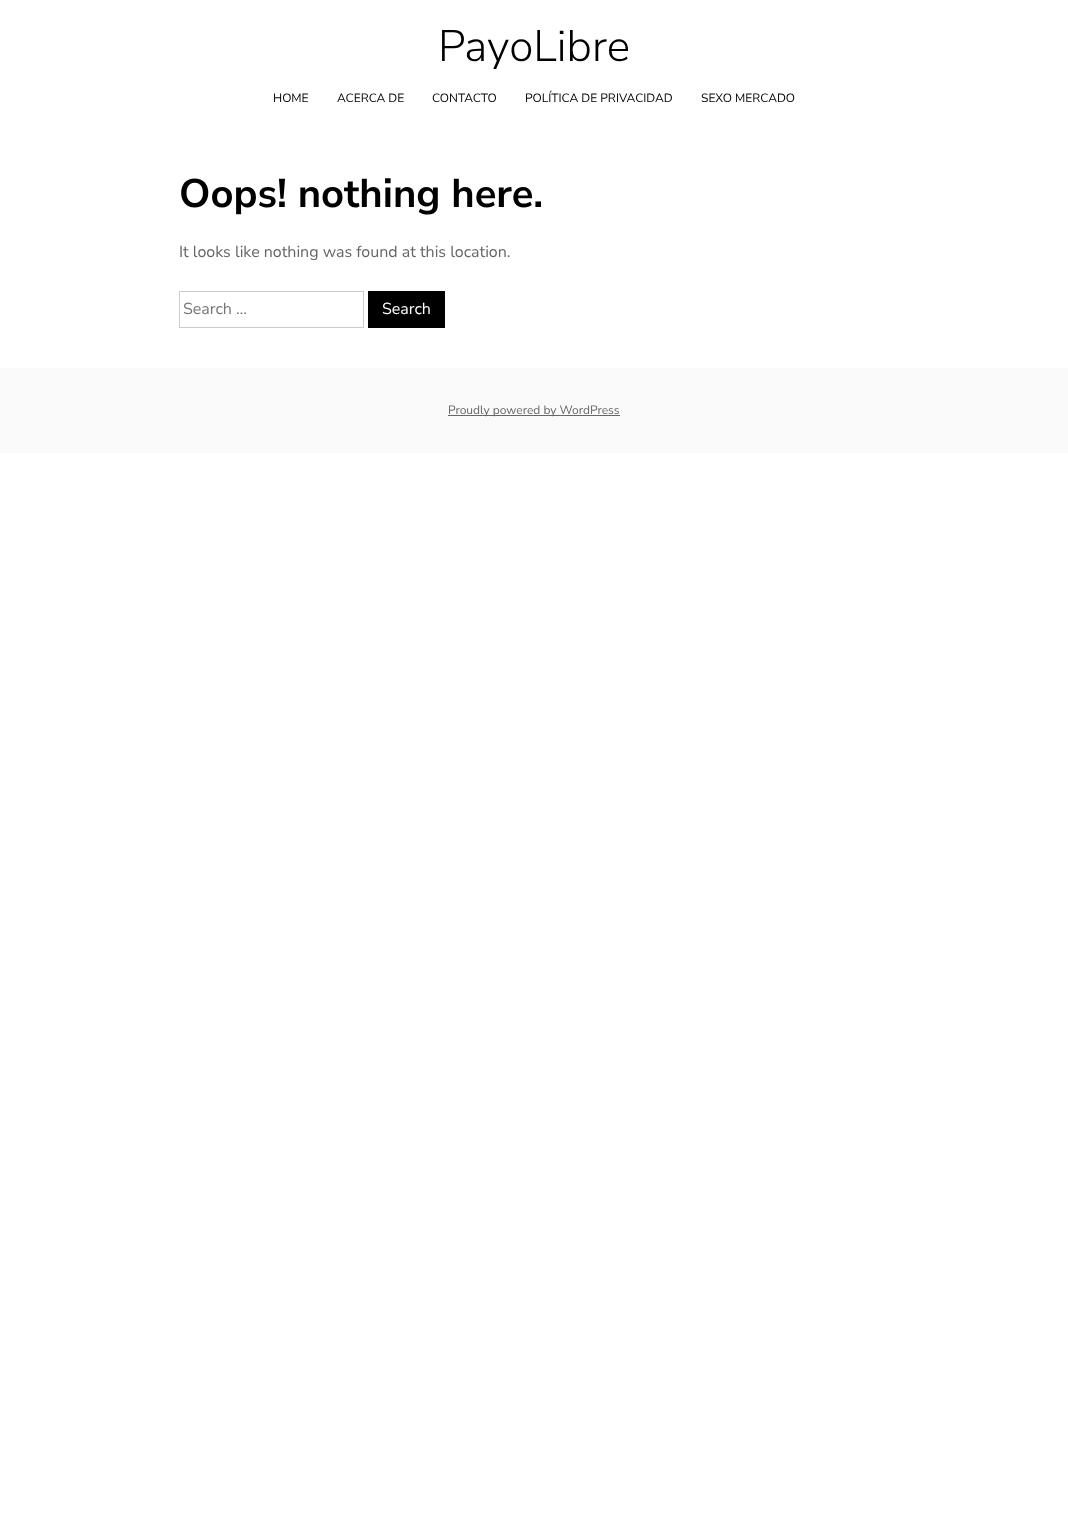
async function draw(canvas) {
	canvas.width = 1068;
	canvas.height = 1535;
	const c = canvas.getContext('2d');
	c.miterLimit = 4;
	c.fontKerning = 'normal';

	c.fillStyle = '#fff';
	c.fillRect(0, 0, 1068, 1535);
	c.font = '300 44px Nunito Sans';
	c.fillStyle = '#000';
	c.fillText('PayoLibre', 438, 61);
	c.font = '12px Nunito Sans';
	for (const [text, x, y] of [
		['HOME', 273, 102],
		['ACERCA DE', 337, 102],
		['CONTACTO', 432, 102],
		['POLÍTICA DE PRIVACIDAD', 525, 102],
		['SEXO MERCADO', 701, 102],
	]) {
		c.fillText(text, x, y);
	}
	c.font = 'bold 40px Nunito Sans';
	c.fillText('Oops! nothing here.', 179, 207);
	c.font = '16px Nunito Sans';
	c.fillStyle = '#666';
	c.fillText('It looks like nothing was found at this location.', 179, 257);
	c.strokeStyle = '#ccc';
	c.strokeRect(179.5, 291.5, 184, 36);
	c.fillStyle = '#757575';
	c.fillText('Search …', 183, 314);
	c.fillStyle = '#000';
	c.fillRect(368, 291, 77, 37);
	c.fillStyle = '#fff';
	c.fillText('Search', 382, 314);
	c.fillStyle = '#fafafa';
	c.fillRect(0, 368, 1068, 85);
	c.fillStyle = '#666';
	c.fillRect(448, 415, 172, 1);
	c.font = '12px Nunito Sans';
	c.fillText('Proudly powered by WordPress', 448, 414);
}

draw(document.querySelector('canvas'));
